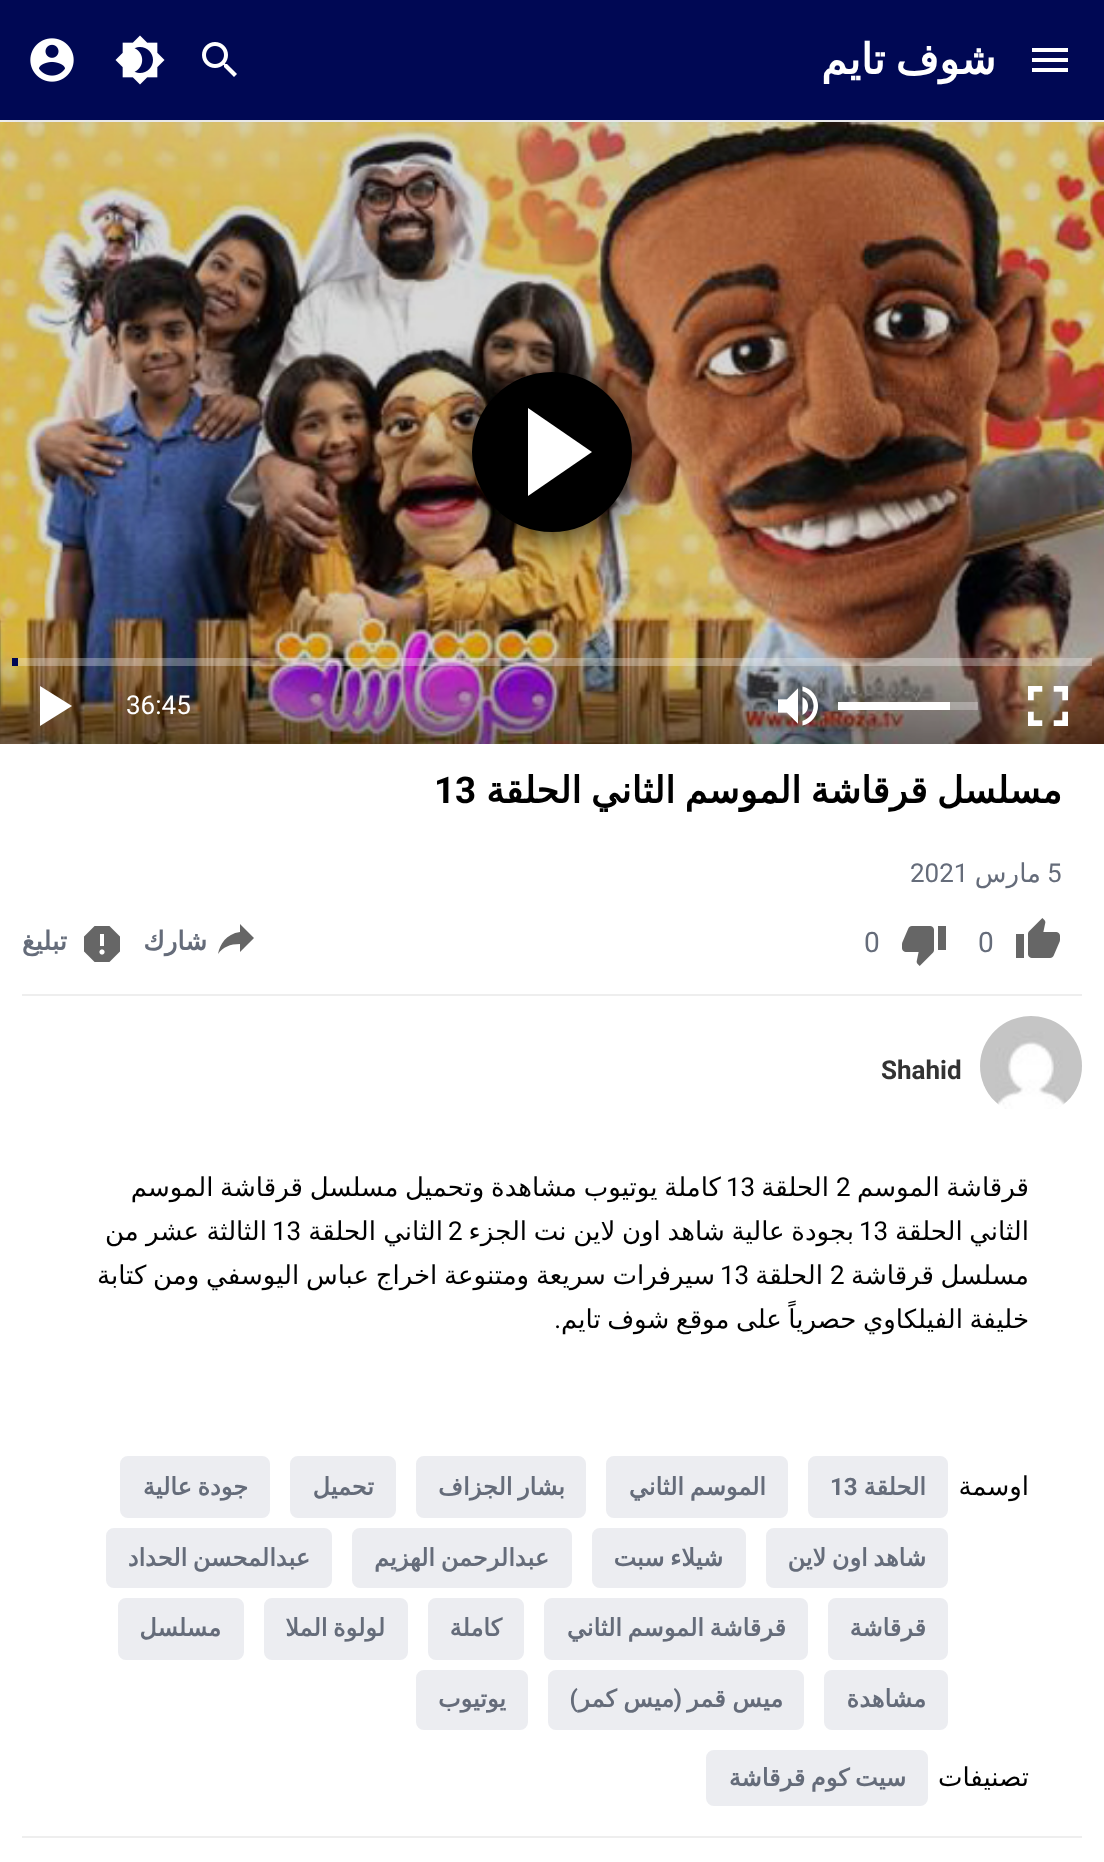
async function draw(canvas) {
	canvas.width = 1104;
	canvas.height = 1862;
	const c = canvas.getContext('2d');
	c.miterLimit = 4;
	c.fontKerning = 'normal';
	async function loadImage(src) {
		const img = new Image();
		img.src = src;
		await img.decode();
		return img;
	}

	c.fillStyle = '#fff';
	c.fillRect(0, 0, 1104, 1862);
	c.fillStyle = '#eee';
	c.fillRect(0, 120, 1104, 2);
	c.drawImage(await loadImage('img5.png'), 0, 122, 1104, 622);
	c.fillStyle = '#999';
	c.filter = 'blur(5px)';
	c.beginPath();
	c.rect(10, 14, 1084, 100);
	c.fill();
	c.filter = 'none';
	c.fillStyle = '#000854';
	c.fillRect(0, 0, 1104, 120);
	c.drawImage(await loadImage('img1.png'), 1032, 48, 36, 24);
	c.wordSpacing = '-3px';
	c.direction = 'rtl';
	c.font = 'bold 42px DejaVu Sans';
	c.fillStyle = '#fff';
	c.fillText('شوف تايم', 996, 74);
	c.drawImage(await loadImage('img2.png'), 202, 42, 35, 35);
	c.drawImage(await loadImage('img3.png'), 115, 35, 50, 50);
	c.drawImage(await loadImage('img4.png'), 30, 38, 44, 44);
	c.fillStyle = '#000';
	c.filter = 'blur(20px)';
	c.beginPath();
	c.roundRect(472, 372, 160, 160, 80);
	c.fill();
	c.filter = 'none';
	c.beginPath();
	c.arc(552, 452, 80, 0, 2 * Math.PI);
	c.fill();
	c.fillStyle = '#fff';
	c.beginPath();
	c.moveTo(528, 496);
	c.lineTo(528, 408);
	c.lineTo(592, 452);
	c.closePath();
	c.fill();
	c.fillStyle = '#ffffff4d';
	c.fillRect(12, 658, 1080, 8);
	c.fillStyle = '#000854';
	c.fillRect(12, 658, 6, 8);
	c.drawImage(await loadImage('img6.png'), 1028, 686, 40, 40);
	c.fillStyle = '#ffffff4d';
	c.fillRect(950, 702, 28, 8);
	c.fillStyle = '#fff';
	c.fillRect(838, 702, 112, 8);
	c.drawImage(await loadImage('img7.png'), 778, 686, 40, 40);
	c.wordSpacing = '0px';
	c.direction = 'ltr';
	c.font = '26px Roboto';
	c.fillText('36:45', 126, 714);
	c.beginPath();
	c.moveTo(40, 686);
	c.lineTo(40, 726);
	c.lineTo(72, 706);
	c.closePath();
	c.fill();
	c.wordSpacing = '-2.5px';
	c.direction = 'rtl';
	c.font = 'bold 36.75px DejaVu Sans';
	c.fillStyle = '#000';
	c.fillText('مسلسل قرقاشة الموسم الثاني الحلقة', 1062, 803);
	c.wordSpacing = '0px';
	c.direction = 'ltr';
	c.font = 'bold 36.75px Roboto';
	c.fillText('13', 434, 803);
	c.fillStyle = '#eee';
	c.fillRect(22, 994, 1060, 2);
	c.font = '26px Roboto';
	c.fillStyle = '#656c7a';
	c.fillText('5', 1047, 882);
	c.direction = 'rtl';
	c.font = '26px DejaVu Sans';
	c.fillText('مارس', 1041, 882);
	c.direction = 'ltr';
	c.font = '26px Roboto';
	c.fillText('2021', 910, 882);
	c.drawImage(await loadImage('img8.png'), 1016, 918, 44, 40);
	c.font = '28px Roboto';
	c.fillText('0', 978, 952);
	c.drawImage(await loadImage('img9.png'), 902, 926, 44, 40);
	c.fillText('0', 864, 952);
	c.fillStyle = '#666';
	c.beginPath();
	c.moveTo(254, 938);
	c.lineTo(240, 924);
	c.lineTo(240, 932);
	c.bezierCurveTo(226, 934, 220, 944, 218, 954);
	c.bezierCurveTo(223, 947, 230, 944, 240, 944);
	c.lineTo(240, 952);
	c.closePath();
	c.fill();
	c.direction = 'rtl';
	c.font = 'bold 26px DejaVu Sans';
	c.fillStyle = '#656c7a';
	c.fillText('شارك', 207, 950);
	c.drawImage(await loadImage('img10.png'), 84, 926, 36, 36);
	c.fillText('تبليغ', 67, 950);
	c.drawImage(await loadImage('img11.png'), 980, 1016, 102, 93);
	c.direction = 'ltr';
	c.font = 'bold 26px Roboto';
	c.fillStyle = '#333';
	c.fillText('Shahid', 881, 1079);
	c.wordSpacing = '-1.75px';
	c.direction = 'rtl';
	c.font = '26px DejaVu Sans';
	c.fillStyle = '#000';
	c.fillText('قرقاشة الموسم', 1029, 1196);
	c.wordSpacing = '0px';
	c.direction = 'ltr';
	c.font = '26px Roboto';
	c.fillText('2', 836, 1196);
	c.direction = 'rtl';
	c.font = '26px DejaVu Sans';
	c.fillText('الحلقة', 829, 1196);
	c.direction = 'ltr';
	c.font = '26px Roboto';
	c.fillText('13', 726, 1196);
	c.wordSpacing = '-1.5px';
	c.direction = 'rtl';
	c.font = '26px DejaVu Sans';
	c.fillText('كاملة يوتيوب مشاهدة وتحميل مسلسل قرقاشة الموسم', 721, 1196);
	c.wordSpacing = '-1.75px';
	c.fillText('الثاني الحلقة', 1029, 1240);
	c.wordSpacing = '0px';
	c.direction = 'ltr';
	c.font = '26px Roboto';
	c.fillText('13', 859, 1240);
	c.wordSpacing = '-1.5px';
	c.direction = 'rtl';
	c.font = '26px DejaVu Sans';
	c.fillText('بجودة عالية شاهد اون لاين نت الجزء', 854, 1240);
	c.wordSpacing = '0px';
	c.direction = 'ltr';
	c.font = '26px Roboto';
	c.fillText('2', 448, 1240);
	c.wordSpacing = '-1px';
	c.direction = 'rtl';
	c.font = '26px DejaVu Sans';
	c.fillText('الثاني الحلقة', 443, 1240);
	c.wordSpacing = '0px';
	c.direction = 'ltr';
	c.font = '26px Roboto';
	c.fillText('13', 272, 1240);
	c.wordSpacing = '-1px';
	c.direction = 'rtl';
	c.font = '26px DejaVu Sans';
	c.fillText('الثالثة عشر من', 267, 1240);
	c.wordSpacing = '-1.75px';
	c.fillText('مسلسل قرقاشة', 1029, 1284);
	c.wordSpacing = '0px';
	c.direction = 'ltr';
	c.font = '26px Roboto';
	c.fillText('2', 830, 1284);
	c.direction = 'rtl';
	c.font = '26px DejaVu Sans';
	c.fillText('الحلقة', 823, 1284);
	c.direction = 'ltr';
	c.font = '26px Roboto';
	c.fillText('13', 720, 1284);
	c.wordSpacing = '-1.5px';
	c.direction = 'rtl';
	c.font = '26px DejaVu Sans';
	c.fillText('سيرفرات سريعة ومتنوعة اخراج عباس اليوسفي ومن كتابة', 715, 1284);
	c.wordSpacing = '-1.75px';
	c.fillText('خليفة الفيلكاوي حصرياً على موقع شوف تايم', 1029, 1328);
	c.wordSpacing = '0px';
	c.font = '26px Roboto';
	c.fillText('.', 561, 1328);
	c.font = '26px DejaVu Sans';
	c.fillText('اوسمة', 1029, 1495);
	c.fillStyle = '#ecedf1';
	c.beginPath();
	c.roundRect(809, 1457, 138, 60, 7);
	c.fill();
	c.strokeStyle = '#ecedf1';
	c.lineWidth = 2;
	c.stroke();
	c.font = 'bold 24px DejaVu Sans';
	c.fillStyle = '#656c7a';
	c.fillText('الحلقة', 926, 1495);
	c.direction = 'ltr';
	c.font = 'bold 24px Roboto';
	c.fillText('13', 830, 1495);
	c.fillStyle = '#ecedf1';
	c.beginPath();
	c.roundRect(607, 1457, 180, 60, 7);
	c.fill();
	c.stroke();
	c.wordSpacing = '-2px';
	c.direction = 'rtl';
	c.font = 'bold 24px DejaVu Sans';
	c.fillStyle = '#656c7a';
	c.fillText('الموسم الثاني', 766, 1495);
	c.fillStyle = '#ecedf1';
	c.beginPath();
	c.roundRect(417, 1457, 168, 60, 7);
	c.fill();
	c.stroke();
	c.fillStyle = '#656c7a';
	c.fillText('بشار الجزاف', 565, 1495);
	c.fillStyle = '#ecedf1';
	c.beginPath();
	c.roundRect(291, 1457, 104, 60, 7);
	c.fill();
	c.stroke();
	c.wordSpacing = '0px';
	c.fillStyle = '#656c7a';
	c.fillText('تحميل', 374, 1495);
	c.fillStyle = '#ecedf1';
	c.beginPath();
	c.roundRect(121, 1457, 148, 60, 7);
	c.fill();
	c.stroke();
	c.wordSpacing = '-2px';
	c.fillStyle = '#656c7a';
	c.fillText('جودة عالية', 248, 1495);
	c.fillStyle = '#ecedf1';
	c.beginPath();
	c.roundRect(767, 1529, 180, 58, 7);
	c.fill();
	c.stroke();
	c.fillStyle = '#656c7a';
	c.fillText('شاهد اون لاين', 926, 1566);
	c.fillStyle = '#ecedf1';
	c.beginPath();
	c.roundRect(593, 1529, 152, 58, 7);
	c.fill();
	c.stroke();
	c.fillStyle = '#656c7a';
	c.fillText('شيلاء سبت', 723, 1566);
	c.fillStyle = '#ecedf1';
	c.beginPath();
	c.roundRect(353, 1529, 218, 58, 7);
	c.fill();
	c.stroke();
	c.fillStyle = '#656c7a';
	c.fillText('عبدالرحمن الهزيم', 549, 1566);
	c.fillStyle = '#ecedf1';
	c.beginPath();
	c.roundRect(107, 1529, 224, 58, 7);
	c.fill();
	c.stroke();
	c.fillStyle = '#656c7a';
	c.fillText('عبدالمحسن الحداد', 310, 1566);
	c.fillStyle = '#ecedf1';
	c.beginPath();
	c.roundRect(829, 1599, 118, 60, 7);
	c.fill();
	c.stroke();
	c.wordSpacing = '0px';
	c.fillStyle = '#656c7a';
	c.fillText('قرقاشة', 926, 1636);
	c.fillStyle = '#ecedf1';
	c.beginPath();
	c.roundRect(545, 1599, 262, 60, 7);
	c.fill();
	c.stroke();
	c.wordSpacing = '-2px';
	c.fillStyle = '#656c7a';
	c.fillText('قرقاشة الموسم الثاني', 786, 1636);
	c.fillStyle = '#ecedf1';
	c.beginPath();
	c.roundRect(429, 1599, 94, 60, 7);
	c.fill();
	c.stroke();
	c.wordSpacing = '0px';
	c.fillStyle = '#656c7a';
	c.fillText('كاملة', 502, 1636);
	c.fillStyle = '#ecedf1';
	c.beginPath();
	c.roundRect(265, 1599, 142, 60, 7);
	c.fill();
	c.stroke();
	c.wordSpacing = '-2px';
	c.fillStyle = '#656c7a';
	c.fillText('لولوة الملا', 385, 1636);
	c.fillStyle = '#ecedf1';
	c.beginPath();
	c.roundRect(119, 1599, 124, 60, 7);
	c.fill();
	c.stroke();
	c.wordSpacing = '0px';
	c.fillStyle = '#656c7a';
	c.fillText('مسلسل', 221, 1636);
	c.fillStyle = '#ecedf1';
	c.beginPath();
	c.roundRect(825, 1671, 122, 58, 7);
	c.fill();
	c.stroke();
	c.fillStyle = '#656c7a';
	c.fillText('مشاهدة', 926, 1707);
	c.fillStyle = '#ecedf1';
	c.beginPath();
	c.roundRect(549, 1671, 254, 58, 7);
	c.fill();
	c.stroke();
	c.wordSpacing = '-1px';
	c.fillStyle = '#656c7a';
	c.fillText('ميس قمر', 783, 1707);
	c.wordSpacing = '0px';
	c.font = 'bold 24px Roboto';
	c.fillText('(', 682, 1707);
	c.wordSpacing = '-1px';
	c.font = 'bold 24px DejaVu Sans';
	c.fillText('ميس كمر', 674, 1707);
	c.wordSpacing = '0px';
	c.font = 'bold 24px Roboto';
	c.fillText(')', 578, 1707);
	c.fillStyle = '#ecedf1';
	c.beginPath();
	c.roundRect(417, 1671, 110, 58, 7);
	c.fill();
	c.stroke();
	c.font = 'bold 24px DejaVu Sans';
	c.fillStyle = '#656c7a';
	c.fillText('يوتيوب', 506, 1707);
	c.font = '26px DejaVu Sans';
	c.fillStyle = '#000';
	c.fillText('تصنيفات', 1029, 1786);
	c.fillStyle = '#ecedf1';
	c.beginPath();
	c.roundRect(707, 1751, 220, 54, 7);
	c.fill();
	c.stroke();
	c.wordSpacing = '-2px';
	c.font = 'bold 24px DejaVu Sans';
	c.fillStyle = '#656c7a';
	c.fillText('ﺳﻴﺖ ﻛﻮﻡ قرقاشة', 906, 1786);
	c.fillStyle = '#eee';
	c.fillRect(22, 1836, 1060, 2);
}

draw(document.querySelector('canvas'));
